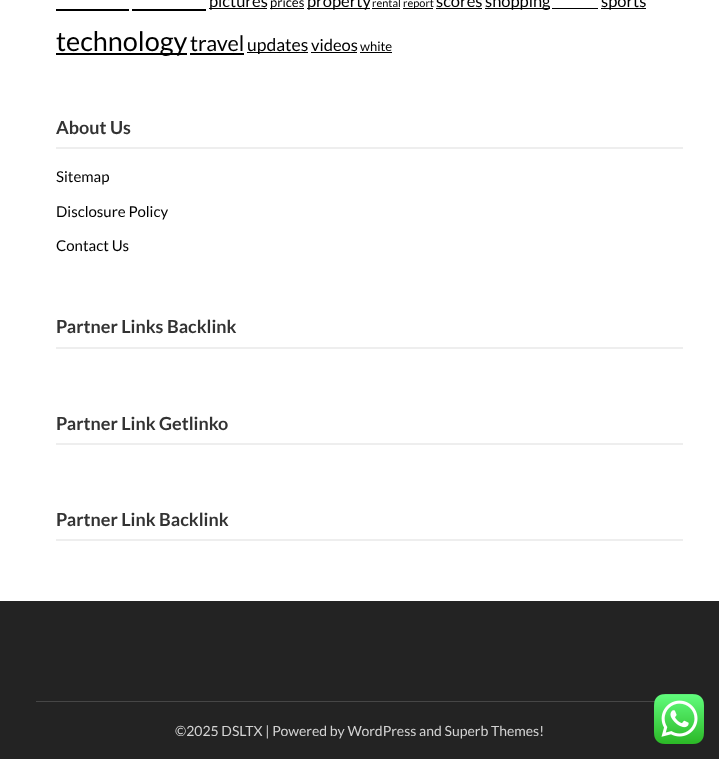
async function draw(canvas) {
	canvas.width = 719;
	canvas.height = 759;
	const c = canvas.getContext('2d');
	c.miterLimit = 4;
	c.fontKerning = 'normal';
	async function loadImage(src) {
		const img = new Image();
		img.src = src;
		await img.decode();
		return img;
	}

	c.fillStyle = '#fff';
	c.fillRect(0, 0, 719, 759);
	c.fillStyle = '#000';
	c.fillRect(209, 8, 58, 1);
	c.font = '16.5px Lato';
	c.fillText('pictures', 209, 7);
	c.fillRect(270, 8, 34, 1);
	c.font = '13px Lato';
	c.fillText('prices', 270, 7);
	c.fillRect(307, 8, 63, 1);
	c.font = '16.5px Lato';
	c.fillText('property', 307, 7);
	c.font = '11px Lato';
	c.fillText('rental', 372, 7);
	c.fillRect(372, 8, 28, 1);
	c.fillRect(403, 8, 30, 1);
	c.fillText('report', 403, 7);
	c.font = '16.5px Lato';
	c.fillText('scores', 436, 7);
	c.fillRect(436, 8, 46, 1);
	c.fillRect(485, 8, 65, 1);
	c.fillText('shopping', 485, 7);
	c.fillRect(552, 8, 46, 1);
	c.fillRect(601, 8, 45, 1);
	c.fillText('sports', 601, 7);
	for (const [x, y, w, h, color] of [
		[56, 9, 73, 2, '#000'],
		[132, 9, 74, 2, '#000'],
		[56, 53, 131, 2, '#000'],
	]) {
		c.fillStyle = color;
		c.fillRect(x, y, w, h);
	}
	c.font = '27px Lato';
	c.fillText('technology', 56, 51);
	c.font = '21.5px Lato';
	c.fillText('travel', 190, 51);
	c.fillRect(190, 53, 54, 2);
	c.fillRect(247, 52, 61, 1);
	c.font = '17.5px Lato';
	c.fillText('updates', 247, 51);
	c.font = '16.5px Lato';
	c.fillText('videos', 311, 51);
	c.fillRect(311, 52, 46, 1);
	c.font = '13px Lato';
	c.fillText('white', 360, 51);
	c.fillRect(360, 52, 32, 1);
	c.fillStyle = '#eee';
	c.fillRect(56, 147, 627, 2);
	c.font = 'bold 18px Lato';
	c.fillStyle = '#333';
	c.fillText('About Us', 56, 134);
	c.font = '15px Lato';
	c.fillStyle = '#000';
	for (const [text, x, y] of [
		['Sitemap', 56, 182],
		['Disclosure Policy', 56, 217],
		['Contact Us', 56, 251],
	]) {
		c.fillText(text, x, y);
	}
	c.fillStyle = '#eee';
	c.fillRect(56, 347, 627, 2);
	c.font = 'bold 18px Lato';
	c.fillStyle = '#333';
	c.fillText('Partner Links Backlink', 56, 333);
	c.fillStyle = '#eee';
	c.fillRect(56, 443, 627, 2);
	c.fillStyle = '#333';
	c.fillText('Partner Link Getlinko', 56, 430);
	c.fillStyle = '#eee';
	c.fillRect(56, 539, 627, 2);
	c.fillStyle = '#333';
	c.fillText('Partner Link Backlink', 56, 526);
	c.fillStyle = '#232323';
	c.fillRect(0, 601, 719, 158);
	c.fillStyle = '#464646';
	c.fillRect(36, 701, 619, 1);
	c.font = '14px Lato';
	c.fillStyle = '#d3d3d3';
	c.fillText('©2025 DSLTX | Powered by WordPress and Superb Themes!', 175, 736);
	c.drawImage(await loadImage('img1.png'), 654, 694, 50, 50);
}

draw(document.querySelector('canvas'));
